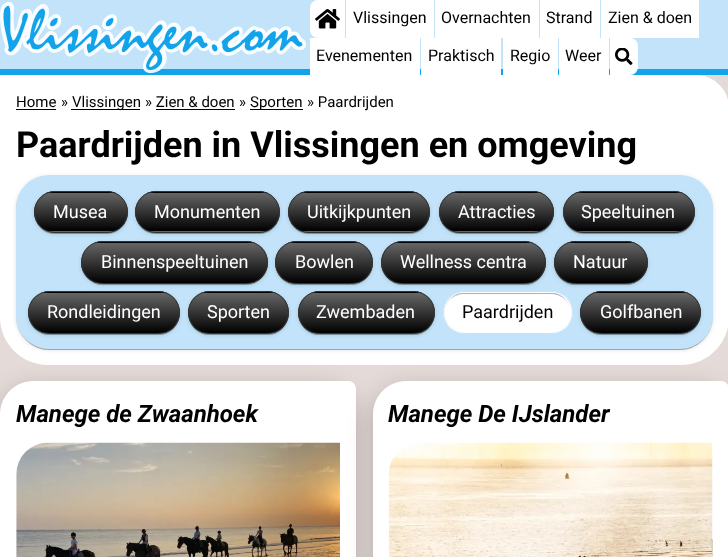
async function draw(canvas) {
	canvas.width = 728;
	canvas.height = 557;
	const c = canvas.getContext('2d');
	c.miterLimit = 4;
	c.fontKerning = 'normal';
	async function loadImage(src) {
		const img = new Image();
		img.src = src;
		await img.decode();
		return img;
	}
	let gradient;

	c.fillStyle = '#e4dad8';
	c.fillRect(0, 0, 728, 557);
	c.fillStyle = '#c2e3f9';
	c.fillRect(0, 0, 728, 69);
	c.fillStyle = '#12a3eb';
	c.fillRect(0, 69, 728, 6);
	c.drawImage(await loadImage('img1.png'), 0, 1, 306, 73);
	c.fillStyle = '#fff';
	c.beginPath();
	c.roundRect(310, 0, 35, 38, [8, 0, 0, 8]);
	c.fill();
	c.drawImage(await loadImage('img2.png'), 315, 9, 25, 20);
	c.fillRect(346, 0, 88, 38);
	c.font = '16px Roboto';
	c.fillStyle = '#000';
	c.fillText('Vlissingen', 353, 23);
	c.fillStyle = '#fff';
	c.fillRect(435, 0, 104, 38);
	c.fillStyle = '#000';
	c.fillText('Overnachten', 441, 23);
	c.fillStyle = '#fff';
	c.fillRect(540, 0, 60, 38);
	c.fillStyle = '#000';
	c.fillText('Strand', 546, 23);
	c.fillStyle = '#fff';
	c.fillRect(601, 0, 98, 38);
	c.fillStyle = '#000';
	c.fillText('Zien & doen', 608, 23);
	c.fillStyle = '#fff';
	c.fillRect(310, 38, 110, 37);
	c.fillStyle = '#000';
	c.fillText('Evenementen', 316, 61);
	c.fillStyle = '#fff';
	c.fillRect(421, 38, 80, 37);
	c.fillStyle = '#000';
	c.fillText('Praktisch', 428, 61);
	c.fillStyle = '#fff';
	c.fillRect(503, 38, 55, 37);
	c.fillStyle = '#000';
	c.fillText('Regio', 510, 61);
	c.fillStyle = '#fff';
	c.fillRect(559, 38, 50, 37);
	c.fillStyle = '#000';
	c.fillText('Weer', 565, 61);
	c.fillStyle = '#fff';
	c.beginPath();
	c.roundRect(610, 38, 28, 37, [0, 8, 8, 0]);
	c.fill();
	c.drawImage(await loadImage('img3.png'), 615, 48, 18, 17);
	c.beginPath();
	c.moveTo(0, 75);
	c.lineTo(696, 75);
	c.bezierCurveTo(714, 75, 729, 90, 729, 108);
	c.lineTo(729, 317);
	c.bezierCurveTo(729, 343.5, 707.5, 365, 681, 365);
	c.lineTo(48, 365);
	c.bezierCurveTo(21.5, 365, 0, 343.5, 0, 317);
	c.closePath();
	c.fill();
	c.font = '15px Roboto';
	c.fillStyle = '#000';
	c.fillText('Home', 16, 107);
	c.fillRect(16, 109, 40, 1);
	c.fillText('»', 61, 107);
	c.fillRect(71, 109, 69, 1);
	c.fillText('Vlissingen', 72, 107);
	c.fillText('» Zien & doen', 145, 107);
	c.fillRect(156, 109, 79, 1);
	c.fillText('»', 239, 107);
	c.fillRect(250, 109, 53, 1);
	c.fillText('Sporten', 250, 107);
	c.fillText('» Paardrijden', 307, 107);
	c.font = 'bold 36px Roboto';
	c.fillText('Paardrijden in Vlissingen en omgeving', 16, 157);
	c.fillStyle = '#0000001f';
	c.filter = 'blur(2px)';
	c.beginPath();
	c.roundRect(16, 176, 697, 174, 33);
	c.fill();
	c.filter = 'none';
	c.fillStyle = '#00000024';
	c.filter = 'blur(0.5px)';
	c.beginPath();
	c.roundRect(16, 176, 697, 174, 33);
	c.fill();
	c.filter = 'none';
	c.fillStyle = '#00000033';
	c.filter = 'blur(0.5px)';
	c.beginPath();
	c.roundRect(18, 179, 693, 171, 31);
	c.fill();
	c.filter = 'none';
	c.fillStyle = '#c2e3f9';
	c.beginPath();
	c.roundRect(16, 175, 697, 174, 33);
	c.fill();
	c.fillStyle = '#0000001f';
	c.filter = 'blur(2px)';
	c.beginPath();
	c.roundRect(34, 193, 94, 41, 20.5);
	c.fill();
	c.filter = 'none';
	c.fillStyle = '#00000024';
	c.filter = 'blur(0.5px)';
	c.beginPath();
	c.roundRect(34, 193, 94, 41, 20.5);
	c.fill();
	c.filter = 'none';
	c.fillStyle = '#00000033';
	c.filter = 'blur(0.5px)';
	c.beginPath();
	c.roundRect(35, 195, 91, 39, 19.5);
	c.fill();
	c.filter = 'none';
	c.save();
	c.beginPath();
	c.roundRect(34, 191, 94, 42, 21);
	c.clip();
	gradient = c.createLinearGradient(81, 154, 81, 193);
	gradient.addColorStop(0, '#666');
	gradient.addColorStop(1, '#000');
	c.fillStyle = gradient;
	c.fillRect(46, 191, 70, 2);
	gradient = c.createLinearGradient(81, 193, 81, 231);
	gradient.addColorStop(0, '#666');
	gradient.addColorStop(1, '#000');
	c.fillStyle = gradient;
	c.fillRect(34, 193, 94, 38);
	gradient = c.createLinearGradient(81, 231, 81, 270);
	gradient.addColorStop(0, '#666');
	gradient.addColorStop(1, '#000');
	c.fillStyle = gradient;
	c.fillRect(46, 231, 70, 2);
	c.restore();
	c.beginPath();
	c.roundRect(34.5, 191.5, 93, 41, 20.5);
	c.strokeStyle = '#333';
	c.stroke();
	c.font = '18px Roboto';
	c.fillStyle = '#fff';
	c.fillText('Musea', 53, 218);
	c.fillStyle = '#0000001f';
	c.filter = 'blur(2px)';
	c.beginPath();
	c.roundRect(135, 193, 145, 41, 20.5);
	c.fill();
	c.filter = 'none';
	c.fillStyle = '#00000024';
	c.filter = 'blur(0.5px)';
	c.beginPath();
	c.roundRect(135, 193, 145, 41, 20.5);
	c.fill();
	c.filter = 'none';
	c.fillStyle = '#00000033';
	c.filter = 'blur(0.5px)';
	c.beginPath();
	c.roundRect(136, 195, 143, 39, 19.5);
	c.fill();
	c.filter = 'none';
	c.save();
	c.beginPath();
	c.roundRect(135, 191, 145, 42, 21);
	c.clip();
	gradient = c.createLinearGradient(208, 154, 208, 193);
	gradient.addColorStop(0, '#666');
	gradient.addColorStop(1, '#000');
	c.fillStyle = gradient;
	c.fillRect(147, 191, 121, 2);
	gradient = c.createLinearGradient(208, 193, 208, 231);
	gradient.addColorStop(0, '#666');
	gradient.addColorStop(1, '#000');
	c.fillStyle = gradient;
	c.fillRect(135, 193, 145, 38);
	gradient = c.createLinearGradient(208, 231, 208, 270);
	gradient.addColorStop(0, '#666');
	gradient.addColorStop(1, '#000');
	c.fillStyle = gradient;
	c.fillRect(147, 231, 121, 2);
	c.restore();
	c.beginPath();
	c.roundRect(135.5, 191.5, 144, 41, 20.5);
	c.stroke();
	c.fillStyle = '#fff';
	c.fillText('Monumenten', 154, 218);
	c.fillStyle = '#0000001f';
	c.filter = 'blur(2px)';
	c.beginPath();
	c.roundRect(288, 193, 142, 41, 20.5);
	c.fill();
	c.filter = 'none';
	c.fillStyle = '#00000024';
	c.filter = 'blur(0.5px)';
	c.beginPath();
	c.roundRect(288, 193, 142, 41, 20.5);
	c.fill();
	c.filter = 'none';
	c.fillStyle = '#00000033';
	c.filter = 'blur(0.5px)';
	c.beginPath();
	c.roundRect(289, 195, 140, 39, 19.5);
	c.fill();
	c.filter = 'none';
	c.save();
	c.beginPath();
	c.roundRect(288, 191, 142, 42, 21);
	c.clip();
	gradient = c.createLinearGradient(359, 154, 359, 193);
	gradient.addColorStop(0, '#666');
	gradient.addColorStop(1, '#000');
	c.fillStyle = gradient;
	c.fillRect(300, 191, 118, 2);
	gradient = c.createLinearGradient(359, 193, 359, 231);
	gradient.addColorStop(0, '#666');
	gradient.addColorStop(1, '#000');
	c.fillStyle = gradient;
	c.fillRect(288, 193, 142, 38);
	gradient = c.createLinearGradient(359, 231, 359, 270);
	gradient.addColorStop(0, '#666');
	gradient.addColorStop(1, '#000');
	c.fillStyle = gradient;
	c.fillRect(300, 231, 118, 2);
	c.restore();
	c.beginPath();
	c.roundRect(288.5, 191.5, 141, 41, 20.5);
	c.stroke();
	c.fillStyle = '#fff';
	c.fillText('Uitkijkpunten', 307, 218);
	c.fillStyle = '#0000001f';
	c.filter = 'blur(2px)';
	c.beginPath();
	c.roundRect(439, 193, 115, 41, 20.5);
	c.fill();
	c.filter = 'none';
	c.fillStyle = '#00000024';
	c.filter = 'blur(0.5px)';
	c.beginPath();
	c.roundRect(439, 193, 115, 41, 20.5);
	c.fill();
	c.filter = 'none';
	c.fillStyle = '#00000033';
	c.filter = 'blur(0.5px)';
	c.beginPath();
	c.roundRect(440, 195, 113, 39, 19.5);
	c.fill();
	c.filter = 'none';
	c.save();
	c.beginPath();
	c.roundRect(439, 191, 115, 42, 21);
	c.clip();
	gradient = c.createLinearGradient(496, 154, 496, 193);
	gradient.addColorStop(0, '#666');
	gradient.addColorStop(1, '#000');
	c.fillStyle = gradient;
	c.fillRect(451, 191, 91, 2);
	gradient = c.createLinearGradient(496, 193, 496, 231);
	gradient.addColorStop(0, '#666');
	gradient.addColorStop(1, '#000');
	c.fillStyle = gradient;
	c.fillRect(439, 193, 115, 38);
	gradient = c.createLinearGradient(496, 231, 496, 270);
	gradient.addColorStop(0, '#666');
	gradient.addColorStop(1, '#000');
	c.fillStyle = gradient;
	c.fillRect(451, 231, 91, 2);
	c.restore();
	c.beginPath();
	c.roundRect(439.5, 191.5, 114, 41, 20.5);
	c.stroke();
	c.fillStyle = '#fff';
	c.fillText('Attracties', 458, 218);
	c.fillStyle = '#0000001f';
	c.filter = 'blur(2px)';
	c.beginPath();
	c.roundRect(563, 193, 132, 41, 20.5);
	c.fill();
	c.filter = 'none';
	c.fillStyle = '#00000024';
	c.filter = 'blur(0.5px)';
	c.beginPath();
	c.roundRect(563, 193, 132, 41, 20.5);
	c.fill();
	c.filter = 'none';
	c.fillStyle = '#00000033';
	c.filter = 'blur(0.5px)';
	c.beginPath();
	c.roundRect(564, 195, 130, 39, 19.5);
	c.fill();
	c.filter = 'none';
	c.save();
	c.beginPath();
	c.roundRect(563, 191, 132, 42, 21);
	c.clip();
	gradient = c.createLinearGradient(629, 154, 629, 193);
	gradient.addColorStop(0, '#666');
	gradient.addColorStop(1, '#000');
	c.fillStyle = gradient;
	c.fillRect(575, 191, 108, 2);
	gradient = c.createLinearGradient(629, 193, 629, 231);
	gradient.addColorStop(0, '#666');
	gradient.addColorStop(1, '#000');
	c.fillStyle = gradient;
	c.fillRect(563, 193, 132, 38);
	gradient = c.createLinearGradient(629, 231, 629, 270);
	gradient.addColorStop(0, '#666');
	gradient.addColorStop(1, '#000');
	c.fillStyle = gradient;
	c.fillRect(575, 231, 108, 2);
	c.restore();
	c.beginPath();
	c.roundRect(563.5, 191.5, 131, 41, 20.5);
	c.stroke();
	c.fillStyle = '#fff';
	c.fillText('Speeltuinen', 581, 218);
	c.fillStyle = '#0000001f';
	c.filter = 'blur(2px)';
	c.beginPath();
	c.roundRect(81, 243, 187, 42, 21);
	c.fill();
	c.filter = 'none';
	c.fillStyle = '#00000024';
	c.filter = 'blur(0.5px)';
	c.beginPath();
	c.roundRect(81, 243, 187, 42, 21);
	c.fill();
	c.filter = 'none';
	c.fillStyle = '#00000033';
	c.filter = 'blur(0.5px)';
	c.beginPath();
	c.roundRect(83, 245, 183, 40, 20);
	c.fill();
	c.filter = 'none';
	c.save();
	c.beginPath();
	c.roundRect(81, 241, 187, 43, 21.5);
	c.clip();
	gradient = c.createLinearGradient(174, 203, 174, 243);
	gradient.addColorStop(0, '#666');
	gradient.addColorStop(1, '#000');
	c.fillStyle = gradient;
	c.fillRect(93, 241, 163, 2);
	gradient = c.createLinearGradient(174, 243, 174, 283);
	gradient.addColorStop(0, '#666');
	gradient.addColorStop(1, '#000');
	c.fillStyle = gradient;
	c.fillRect(81, 243, 187, 40);
	c.restore();
	c.beginPath();
	c.roundRect(81.5, 241.5, 186, 42, 21);
	c.stroke();
	c.fillStyle = '#fff';
	c.fillText('Binnenspeeltuinen', 101, 268);
	c.fillStyle = '#0000001f';
	c.filter = 'blur(2px)';
	c.beginPath();
	c.roundRect(275, 243, 98, 42, 21);
	c.fill();
	c.filter = 'none';
	c.fillStyle = '#00000024';
	c.filter = 'blur(0.5px)';
	c.beginPath();
	c.roundRect(275, 243, 98, 42, 21);
	c.fill();
	c.filter = 'none';
	c.fillStyle = '#00000033';
	c.filter = 'blur(0.5px)';
	c.beginPath();
	c.roundRect(276, 245, 95, 40, 20);
	c.fill();
	c.filter = 'none';
	c.save();
	c.beginPath();
	c.roundRect(275, 241, 98, 43, 21.5);
	c.clip();
	gradient = c.createLinearGradient(324, 203, 324, 243);
	gradient.addColorStop(0, '#666');
	gradient.addColorStop(1, '#000');
	c.fillStyle = gradient;
	c.fillRect(287, 241, 74, 2);
	gradient = c.createLinearGradient(324, 243, 324, 283);
	gradient.addColorStop(0, '#666');
	gradient.addColorStop(1, '#000');
	c.fillStyle = gradient;
	c.fillRect(275, 243, 98, 40);
	c.restore();
	c.beginPath();
	c.roundRect(275.5, 241.5, 97, 42, 21);
	c.stroke();
	c.fillStyle = '#fff';
	c.fillText('Bowlen', 295, 268);
	c.fillStyle = '#0000001f';
	c.filter = 'blur(2px)';
	c.beginPath();
	c.roundRect(381, 243, 165, 42, 21);
	c.fill();
	c.filter = 'none';
	c.fillStyle = '#00000024';
	c.filter = 'blur(0.5px)';
	c.beginPath();
	c.roundRect(381, 243, 165, 42, 21);
	c.fill();
	c.filter = 'none';
	c.fillStyle = '#00000033';
	c.filter = 'blur(0.5px)';
	c.beginPath();
	c.roundRect(383, 245, 162, 40, 20);
	c.fill();
	c.filter = 'none';
	c.save();
	c.beginPath();
	c.roundRect(381, 241, 165, 43, 21.5);
	c.clip();
	gradient = c.createLinearGradient(464, 203, 464, 243);
	gradient.addColorStop(0, '#666');
	gradient.addColorStop(1, '#000');
	c.fillStyle = gradient;
	c.fillRect(393, 241, 141, 2);
	gradient = c.createLinearGradient(464, 243, 464, 283);
	gradient.addColorStop(0, '#666');
	gradient.addColorStop(1, '#000');
	c.fillStyle = gradient;
	c.fillRect(381, 243, 165, 40);
	c.restore();
	c.beginPath();
	c.roundRect(381.5, 241.5, 164, 42, 21);
	c.stroke();
	c.fillStyle = '#fff';
	c.fillText('Wellness centra', 400, 268);
	c.fillStyle = '#0000001f';
	c.filter = 'blur(2px)';
	c.beginPath();
	c.roundRect(554, 243, 94, 42, 21);
	c.fill();
	c.filter = 'none';
	c.fillStyle = '#00000024';
	c.filter = 'blur(0.5px)';
	c.beginPath();
	c.roundRect(554, 243, 94, 42, 21);
	c.fill();
	c.filter = 'none';
	c.fillStyle = '#00000033';
	c.filter = 'blur(0.5px)';
	c.beginPath();
	c.roundRect(555, 245, 91, 40, 20);
	c.fill();
	c.filter = 'none';
	c.save();
	c.beginPath();
	c.roundRect(554, 241, 94, 43, 21.5);
	c.clip();
	gradient = c.createLinearGradient(601, 203, 601, 243);
	gradient.addColorStop(0, '#666');
	gradient.addColorStop(1, '#000');
	c.fillStyle = gradient;
	c.fillRect(566, 241, 70, 2);
	gradient = c.createLinearGradient(601, 243, 601, 283);
	gradient.addColorStop(0, '#666');
	gradient.addColorStop(1, '#000');
	c.fillStyle = gradient;
	c.fillRect(554, 243, 94, 40);
	c.restore();
	c.beginPath();
	c.roundRect(554.5, 241.5, 93, 42, 21);
	c.stroke();
	c.fillStyle = '#fff';
	c.fillText('Natuur', 573, 268);
	c.fillStyle = '#0000001f';
	c.filter = 'blur(2px)';
	c.beginPath();
	c.roundRect(28, 293, 152, 42, 21);
	c.fill();
	c.filter = 'none';
	c.fillStyle = '#00000024';
	c.filter = 'blur(0.5px)';
	c.beginPath();
	c.roundRect(28, 293, 152, 42, 21);
	c.fill();
	c.filter = 'none';
	c.fillStyle = '#00000033';
	c.filter = 'blur(0.5px)';
	c.beginPath();
	c.roundRect(29, 295, 150, 40, 20);
	c.fill();
	c.filter = 'none';
	c.save();
	c.beginPath();
	c.roundRect(28, 291, 152, 43, 21.5);
	c.clip();
	gradient = c.createLinearGradient(104, 253, 104, 293);
	gradient.addColorStop(0, '#666');
	gradient.addColorStop(1, '#000');
	c.fillStyle = gradient;
	c.fillRect(40, 291, 128, 2);
	gradient = c.createLinearGradient(104, 293, 104, 333);
	gradient.addColorStop(0, '#666');
	gradient.addColorStop(1, '#000');
	c.fillStyle = gradient;
	c.fillRect(28, 293, 152, 40);
	c.restore();
	c.beginPath();
	c.roundRect(28.5, 291.5, 151, 42, 21);
	c.stroke();
	c.fillStyle = '#fff';
	c.fillText('Rondleidingen', 47, 318);
	c.fillStyle = '#0000001f';
	c.filter = 'blur(2px)';
	c.beginPath();
	c.roundRect(188, 293, 101, 42, 21);
	c.fill();
	c.filter = 'none';
	c.fillStyle = '#00000024';
	c.filter = 'blur(0.5px)';
	c.beginPath();
	c.roundRect(188, 293, 101, 42, 21);
	c.fill();
	c.filter = 'none';
	c.fillStyle = '#00000033';
	c.filter = 'blur(0.5px)';
	c.beginPath();
	c.roundRect(189, 295, 99, 40, 20);
	c.fill();
	c.filter = 'none';
	c.save();
	c.beginPath();
	c.roundRect(188, 291, 101, 43, 21.5);
	c.clip();
	gradient = c.createLinearGradient(238, 253, 238, 293);
	gradient.addColorStop(0, '#666');
	gradient.addColorStop(1, '#000');
	c.fillStyle = gradient;
	c.fillRect(200, 291, 77, 2);
	gradient = c.createLinearGradient(238, 293, 238, 333);
	gradient.addColorStop(0, '#666');
	gradient.addColorStop(1, '#000');
	c.fillStyle = gradient;
	c.fillRect(188, 293, 101, 40);
	c.restore();
	c.beginPath();
	c.roundRect(188.5, 291.5, 100, 42, 21);
	c.stroke();
	c.fillStyle = '#fff';
	c.fillText('Sporten', 207, 318);
	c.fillStyle = '#0000001f';
	c.filter = 'blur(2px)';
	c.beginPath();
	c.roundRect(298, 293, 137, 42, 21);
	c.fill();
	c.filter = 'none';
	c.fillStyle = '#00000024';
	c.filter = 'blur(0.5px)';
	c.beginPath();
	c.roundRect(298, 293, 137, 42, 21);
	c.fill();
	c.filter = 'none';
	c.fillStyle = '#00000033';
	c.filter = 'blur(0.5px)';
	c.beginPath();
	c.roundRect(299, 295, 135, 40, 20);
	c.fill();
	c.filter = 'none';
	c.save();
	c.beginPath();
	c.roundRect(298, 291, 137, 43, 21.5);
	c.clip();
	gradient = c.createLinearGradient(366, 253, 366, 293);
	gradient.addColorStop(0, '#666');
	gradient.addColorStop(1, '#000');
	c.fillStyle = gradient;
	c.fillRect(310, 291, 113, 2);
	gradient = c.createLinearGradient(366, 293, 366, 333);
	gradient.addColorStop(0, '#666');
	gradient.addColorStop(1, '#000');
	c.fillStyle = gradient;
	c.fillRect(298, 293, 137, 40);
	c.restore();
	c.beginPath();
	c.roundRect(298.5, 291.5, 136, 42, 21);
	c.stroke();
	c.fillStyle = '#fff';
	c.fillText('Zwembaden', 316, 318);
	c.beginPath();
	c.roundRect(443, 291, 130, 43, 21.5);
	c.fill();
	c.fillStyle = '#dbdbdb';
	c.beginPath();
	c.moveTo(464, 294);
	c.lineTo(551, 294);
	c.bezierCurveTo(562, 294, 571, 303, 571, 314);
	c.bezierCurveTo(571, 304, 564, 295, 555, 293);
	c.lineTo(536, 293);
	c.lineTo(460, 293);
	c.bezierCurveTo(451, 295, 444, 304, 444, 314);
	c.bezierCurveTo(444, 303, 453, 294, 464, 294);
	c.closePath();
	c.fill();
	c.fillStyle = '#00000033';
	c.beginPath();
	c.moveTo(464, 294);
	c.lineTo(551, 294);
	c.bezierCurveTo(558, 294, 564, 297, 567, 302);
	c.bezierCurveTo(564, 296, 558, 293, 551, 293);
	c.lineTo(464, 293);
	c.bezierCurveTo(459, 293, 454, 295, 450, 299);
	c.bezierCurveTo(454, 296, 459, 294, 464, 294);
	c.closePath();
	c.fill();
	c.beginPath();
	c.roundRect(443.5, 291.5, 129, 42, 21);
	c.strokeStyle = '#c2e3f9';
	c.stroke();
	c.fillStyle = '#000';
	c.fillText('Paardrijden', 462, 318);
	c.fillStyle = '#0000001f';
	c.filter = 'blur(2px)';
	c.beginPath();
	c.roundRect(580, 293, 121, 42, 21);
	c.fill();
	c.filter = 'none';
	c.fillStyle = '#00000024';
	c.filter = 'blur(0.5px)';
	c.beginPath();
	c.roundRect(580, 293, 121, 42, 21);
	c.fill();
	c.filter = 'none';
	c.fillStyle = '#00000033';
	c.filter = 'blur(0.5px)';
	c.beginPath();
	c.roundRect(581, 295, 119, 40, 20);
	c.fill();
	c.filter = 'none';
	c.save();
	c.beginPath();
	c.roundRect(580, 291, 121, 43, 21.5);
	c.clip();
	gradient = c.createLinearGradient(641, 253, 641, 293);
	gradient.addColorStop(0, '#666');
	gradient.addColorStop(1, '#000');
	c.fillStyle = gradient;
	c.fillRect(592, 291, 97, 2);
	gradient = c.createLinearGradient(641, 293, 641, 333);
	gradient.addColorStop(0, '#666');
	gradient.addColorStop(1, '#000');
	c.fillStyle = gradient;
	c.fillRect(580, 293, 121, 40);
	c.restore();
	c.beginPath();
	c.roundRect(580.5, 291.5, 120, 42, 21);
	c.strokeStyle = '#333';
	c.stroke();
	c.fillStyle = '#fff';
	c.fillText('Golfbanen', 600, 318);
	c.fillStyle = '#00000033';
	c.filter = 'blur(12.5px)';
	c.beginPath();
	c.roundRect(0, 388, 356, 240, 33);
	c.fill();
	c.filter = 'none';
	c.fillStyle = '#fff';
	c.beginPath();
	c.moveTo(33, 381);
	c.lineTo(348, 381);
	c.bezierCurveTo(352.5, 381, 356, 384.5, 356, 389);
	c.lineTo(356, 557);
	c.bezierCurveTo(356, 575, 341, 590, 323, 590);
	c.lineTo(8, 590);
	c.bezierCurveTo(3.5, 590, 0, 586.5, 0, 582);
	c.lineTo(0, 414);
	c.bezierCurveTo(0, 396, 15, 381, 33, 381);
	c.closePath();
	c.fill();
	c.font = 'italic bold 24px Roboto';
	c.fillStyle = '#000';
	c.fillText('Manege de Zwaanhoek', 16, 422);
	c.drawImage(await loadImage('img4.png'), 16, 442, 324, 115);
	c.fillStyle = '#00000033';
	c.filter = 'blur(12.5px)';
	c.beginPath();
	c.roundRect(373, 388, 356, 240, 33);
	c.fill();
	c.filter = 'none';
	c.fillStyle = '#fff';
	c.beginPath();
	c.moveTo(406, 381);
	c.lineTo(721, 381);
	c.bezierCurveTo(725.5, 381, 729, 384.5, 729, 389);
	c.lineTo(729, 557);
	c.bezierCurveTo(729, 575, 714, 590, 696, 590);
	c.lineTo(381, 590);
	c.bezierCurveTo(376.5, 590, 373, 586.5, 373, 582);
	c.lineTo(373, 414);
	c.bezierCurveTo(373, 396, 388, 381, 406, 381);
	c.closePath();
	c.fill();
	c.fillStyle = '#000';
	c.fillText('Manege De IJslander', 388, 422);
	c.drawImage(await loadImage('img5.png'), 388, 442, 325, 115);
}

draw(document.querySelector('canvas'));
